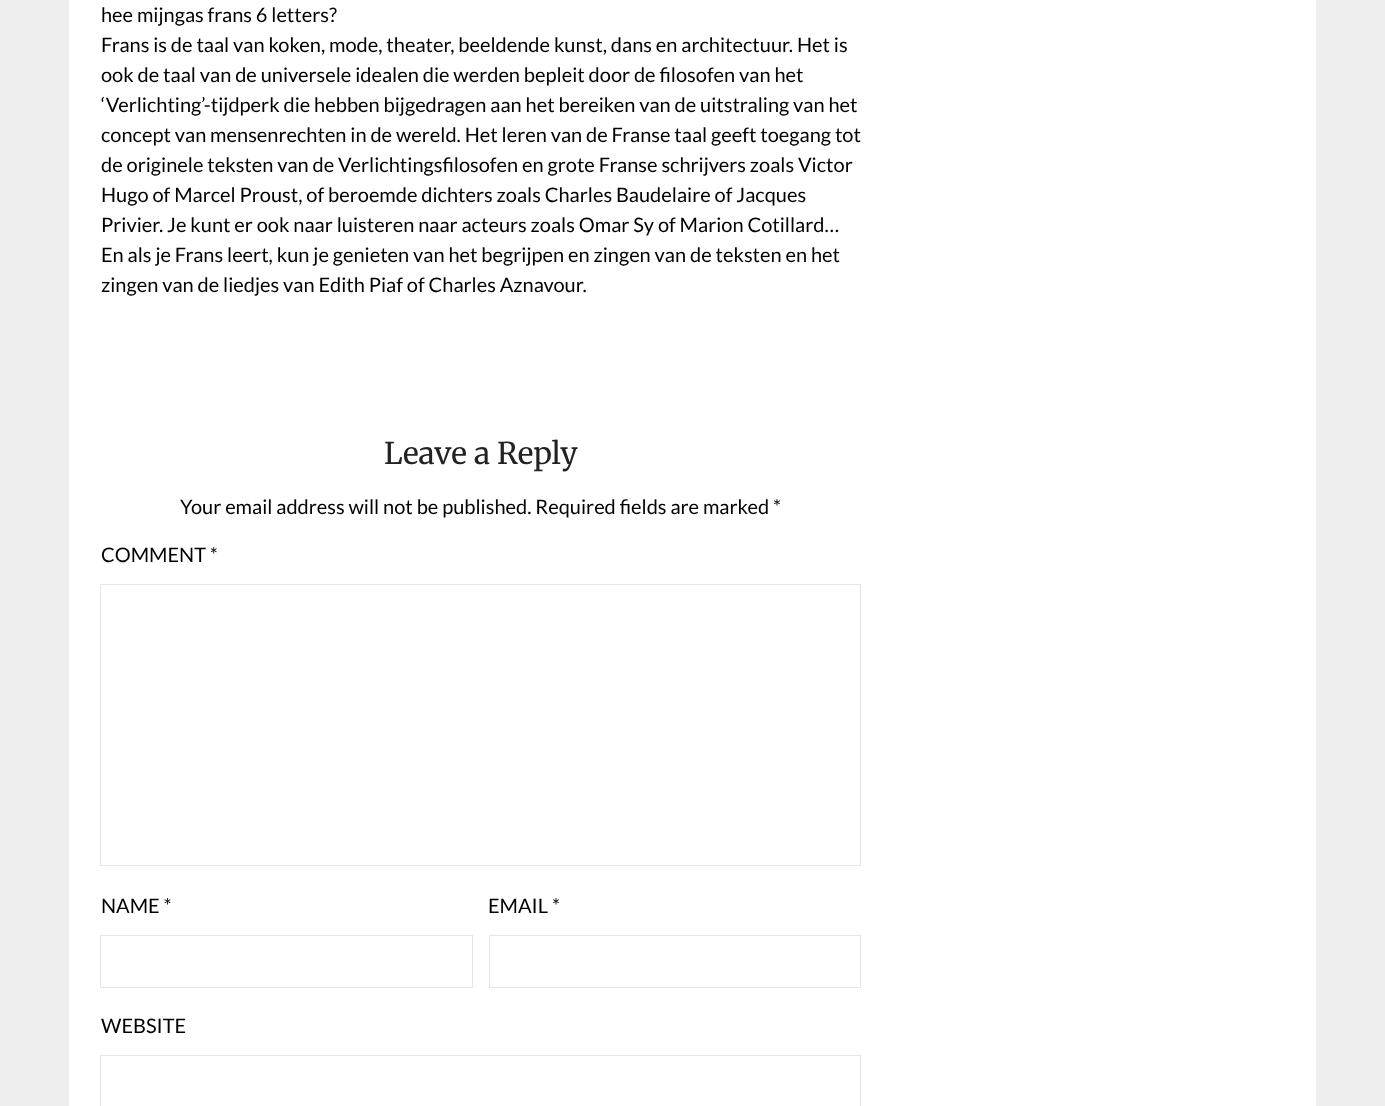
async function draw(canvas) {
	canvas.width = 1385;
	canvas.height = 1106;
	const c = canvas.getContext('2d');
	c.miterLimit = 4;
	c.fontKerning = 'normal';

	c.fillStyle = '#eee';
	c.fillRect(0, 0, 1385, 1106);
	c.fillStyle = '#fff';
	c.fillRect(69, 0, 1247, 1106);
	c.font = '20px Lato';
	c.fillStyle = '#000';
	for (const [text, x, y] of [
		['hee mijngas frans 6 letters?', 101, 22],
		['Frans is de taal van koken, mode, theater, beeldende kunst, dans en architectuur. Het is', 101, 52],
		['ook de taal van de universele idealen die werden bepleit door de filosofen van het', 101, 82],
		['‘Verlichting’-tijdperk die hebben bijgedragen aan het bereiken van de uitstraling van het', 101, 112],
		['concept van mensenrechten in de wereld. Het leren van de Franse taal geeft toegang tot', 101, 142],
		['de originele teksten van de Verlichtingsfilosofen en grote Franse schrijvers zoals Victor', 101, 172],
		['Hugo of Marcel Proust, of beroemde dichters zoals Charles Baudelaire of Jacques', 101, 202],
		['Privier. Je kunt er ook naar luisteren naar acteurs zoals Omar Sy of Marion Cotillard…', 101, 232],
		['En als je Frans leert, kun je genieten van het begrijpen en zingen van de teksten en het', 101, 262],
		['zingen van de liedjes van Edith Piaf of Charles Aznavour.', 101, 292],
	]) {
		c.fillText(text, x, y);
	}
	c.font = '30px Merriweather';
	c.fillStyle = '#222';
	c.fillText('Leave a Reply', 384, 464);
	c.font = '20px Lato';
	c.fillStyle = '#000';
	c.fillText('Your email address will not be published. Required fields are marked *', 180, 514);
	c.fillText('COMMENT *', 101, 562);
	c.strokeStyle = '#e5e6e9';
	c.strokeRect(100.5, 584.5, 760, 281);
	c.fillText('NAME *', 101, 913);
	c.strokeRect(100.5, 935.5, 372, 52);
	c.fillText('EMAIL *', 488, 913);
	c.strokeRect(489.5, 935.5, 371, 52);
	c.fillText('WEBSITE', 101, 1033);
	c.strokeRect(100.5, 1055.5, 760, 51);
}

draw(document.querySelector('canvas'));
